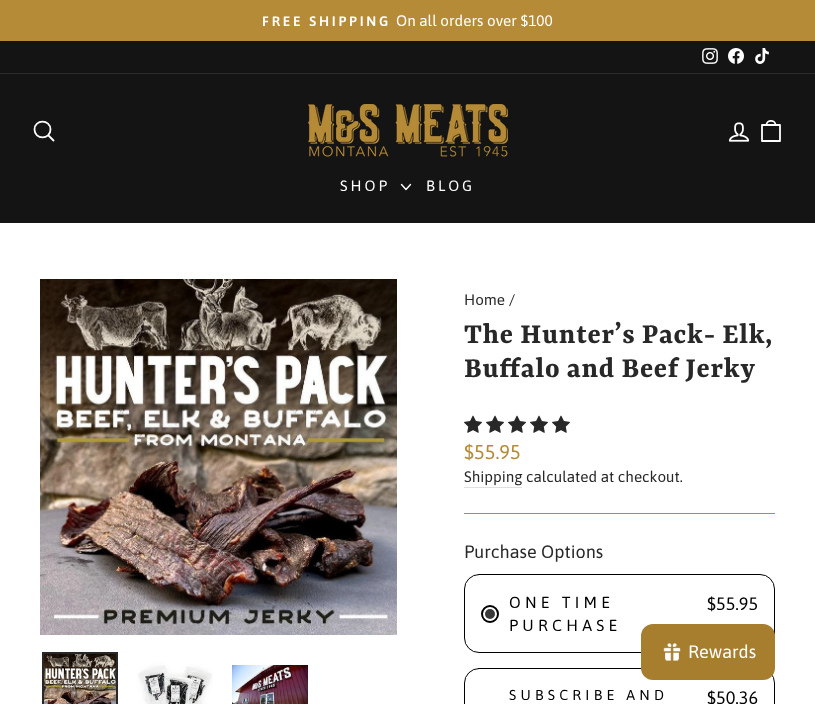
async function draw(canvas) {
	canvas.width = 815;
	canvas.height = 704;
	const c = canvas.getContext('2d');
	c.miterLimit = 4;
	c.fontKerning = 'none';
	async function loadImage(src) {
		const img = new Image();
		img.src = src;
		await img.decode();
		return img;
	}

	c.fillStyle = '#fff';
	c.fillRect(0, 0, 815, 704);
	c.fillStyle = '#b68b37';
	c.fillRect(0, 0, 815, 41);
	c.letterSpacing = '2.75px';
	c.font = '600 13.75px Asap';
	c.fillStyle = '#fff';
	c.fillText('FREE SHIPPING', 262, 26);
	c.letterSpacing = '0px';
	c.font = '15.25px Asap';
	c.fillText('On all orders over $100', 396, 26);
	c.fillStyle = '#151414';
	c.fillRect(0, 41, 815, 32);
	c.drawImage(await loadImage('img1.png'), 702, 48, 16, 16);
	c.drawImage(await loadImage('img2.png'), 728, 48, 16, 16);
	c.drawImage(await loadImage('img3.png'), 755, 48, 14, 16);
	c.fillRect(0, 74, 815, 149);
	c.fillStyle = '#2c2c2c';
	c.fillRect(0, 73, 815, 1);
	c.beginPath();
	c.moveTo(50.5, 129.5);
	c.bezierCurveTo(50.5, 140, 34.5, 140, 34.5, 129.5);
	c.bezierCurveTo(34.5, 119, 50.5, 119, 50.5, 129.5);
	c.closePath();
	c.moveTo(53.5, 140.5);
	c.lineTo(48.5, 135.5);
	c.strokeStyle = '#fff';
	c.lineWidth = 1.8;
	c.lineCap = 'round';
	c.lineJoin = 'round';
	c.stroke();
	c.drawImage(await loadImage('img4.png'), 308, 104, 200, 53);
	c.drawImage(await loadImage('img5.png'), 728, 122, 22, 20);
	c.beginPath();
	c.moveTo(762, 125);
	c.lineTo(780, 125);
	c.lineTo(780, 141);
	c.lineTo(762, 141);
	c.closePath();
	c.moveTo(766.5, 125);
	c.bezierCurveTo(766.5, 119.5, 775.5, 119.5, 775.5, 125);
	c.stroke();
	c.letterSpacing = '3px';
	c.font = '15px Asap';
	c.fillStyle = '#fff';
	c.fillText('SHOP', 340, 191);
	c.beginPath();
	c.moveTo(401.5, 184.5);
	c.lineTo(406, 189.5);
	c.lineTo(410.5, 184.5);
	c.lineWidth = 1.4;
	c.stroke();
	c.fillText('BLOG', 426, 191);
	c.drawImage(await loadImage('img6.png'), 40, 279, 357, 356);
	c.drawImage(await loadImage('img7.png'), 44, 654, 72, 50);
	c.strokeStyle = '#292828';
	c.lineWidth = 2;
	c.lineJoin = 'miter';
	c.strokeRect(43, 653, 74, 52);
	c.drawImage(await loadImage('img8.png'), 137, 652, 76, 52);
	c.drawImage(await loadImage('img9.png'), 232, 665, 76, 39);
	c.letterSpacing = '0px';
	c.font = '15.25px Asap';
	c.fillStyle = '#292828';
	c.fillText('Home /', 464, 305);
	c.letterSpacing = '0.75px';
	c.font = 'bold 30.6px Rasa';
	c.fillText('The Hunter’s Pack- Elk,', 464, 343);
	c.fillText('Buffalo and Beef Jerky', 464, 377);
	c.drawImage(await loadImage('img10.png'), 464, 415, 18, 18);
	c.drawImage(await loadImage('img10.png'), 486, 415, 18, 18);
	c.drawImage(await loadImage('img10.png'), 508, 415, 18, 18);
	c.drawImage(await loadImage('img10.png'), 530, 415, 18, 18);
	c.drawImage(await loadImage('img10.png'), 552, 415, 18, 18);
	c.letterSpacing = '0px';
	c.font = '20px Asap';
	c.fillStyle = '#b68b37';
	c.fillText('$55.95', 464, 459);
	c.fillStyle = '#dfdfdf';
	c.fillRect(464, 487, 58, 1);
	c.font = '15.25px Asap';
	c.fillStyle = '#292828';
	c.fillText('Shipping', 464, 482);
	c.fillText('calculated at checkout.', 526, 482);
	c.fillStyle = '#b68b37';
	c.fillRect(464, 513, 311, 1);
	c.font = '18px Asap';
	c.fillStyle = '#292828';
	c.fillText('Purchase Options', 464, 558);
	c.beginPath();
	c.roundRect(464.5, 574.5, 310, 78, 14.5);
	c.strokeStyle = '#000';
	c.lineWidth = 1;
	c.stroke();
	c.beginPath();
	c.arc(490, 614, 8, 0, 2 * Math.PI);
	c.lineWidth = 2;
	c.stroke();
	c.fillStyle = '#3a3a3a';
	c.beginPath();
	c.arc(490, 614, 5, 0, 2 * Math.PI);
	c.fill();
	c.letterSpacing = '4.25px';
	c.font = '16px Asap';
	c.fillStyle = '#000';
	c.fillText('ONE TIME', 509, 608);
	c.fillText('PURCHASE', 509, 631);
	c.letterSpacing = '0px';
	c.font = '18px Asap';
	c.fillText('$55.95', 707, 610);
	c.beginPath();
	c.roundRect(464.5, 668.5, 310, 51, 14.5);
	c.lineWidth = 1;
	c.stroke();
	c.letterSpacing = '4.25px';
	c.font = '14.4px Asap';
	c.fillText('SUBSCRIBE AND', 509, 700);
	c.letterSpacing = '0px';
	c.font = '18px Asap';
	c.fillText('$50.36', 707, 704);
	c.fillStyle = '#a67e2e';
	c.beginPath();
	c.roundRect(641, 624, 134, 56, 12);
	c.fill();
	c.drawImage(await loadImage('img11.png'), 663, 643, 18, 18);
	c.fillStyle = '#fff';
	c.fillText('Rewards', 688, 658);
}

draw(document.querySelector('canvas'));
